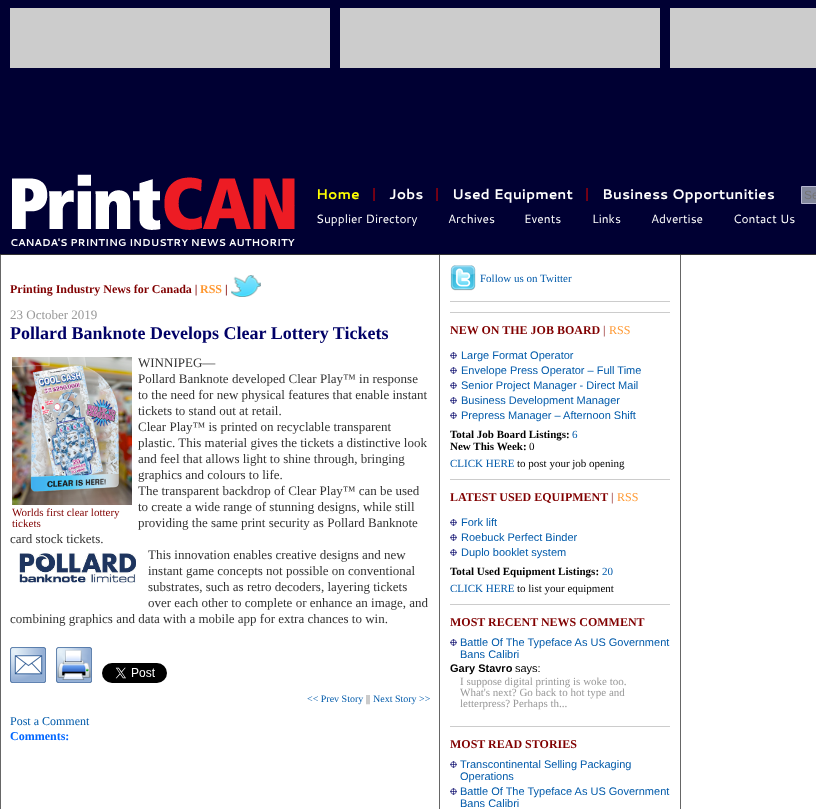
async function draw(canvas) {
	canvas.width = 816;
	canvas.height = 809;
	const c = canvas.getContext('2d');
	c.miterLimit = 4;
	c.fontKerning = 'normal';
	async function loadImage(src) {
		const img = new Image();
		img.src = src;
		await img.decode();
		return img;
	}

	c.fillStyle = '#fff';
	c.fillRect(0, 0, 816, 809);
	for (const [x, y, w, h, color] of [
		[0, 0, 816, 254, '#003'],
		[10, 8, 320, 60, '#ccc'],
		[340, 8, 320, 60, '#ccc'],
		[670, 8, 146, 60, '#ccc'],
	]) {
		c.fillStyle = color;
		c.fillRect(x, y, w, h);
	}
	c.drawImage(await loadImage('img1.png'), 12, 174, 283, 56);
	c.font = 'bold 14px Cantarell';
	c.fillStyle = '#ff0';
	c.fillText('Home', 316, 199);
	c.font = '14px Cantarell';
	c.fillStyle = '#c00';
	c.fillText('|', 371, 199);
	c.font = 'bold 14px Cantarell';
	c.fillStyle = '#fff';
	c.fillText('Jobs', 389, 199);
	c.font = '14px Cantarell';
	c.fillStyle = '#c00';
	c.fillText('|', 434, 199);
	c.font = 'bold 14px Cantarell';
	c.fillStyle = '#fff';
	c.fillText('Used Equipment', 452, 199);
	c.font = '14px Cantarell';
	c.fillStyle = '#c00';
	c.fillText('|', 584, 199);
	c.font = 'bold 14px Cantarell';
	c.fillStyle = '#fff';
	c.fillText('Business Opportunities', 602, 199);
	c.fillStyle = '#83889c';
	c.beginPath();
	c.rect(801.5, 186.5, 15, 17);
	c.fill();
	c.strokeStyle = '#b7b7d1';
	c.stroke();
	c.font = '12px Liberation Sans';
	c.fillStyle = '#757575';
	c.fillText('Se', 804, 199);
	c.font = '12px Cantarell';
	c.fillStyle = '#fff';
	for (const [text, x, y] of [
		['Supplier Directory', 316, 223],
		['Archives', 448, 223],
		['Events', 524, 223],
		['Links', 592, 223],
		['Advertise', 651, 223],
		['Contact Us', 733, 223],
	]) {
		c.fillText(text, x, y);
	}
	c.fillStyle = '#333';
	c.fillRect(0, 254, 816, 1);
	c.font = 'bold 10px Cantarell';
	c.fillStyle = '#fff';
	c.fillText('CANADA\'S PRINTING INDUSTRY NEWS AUTHORITY', 10, 246);
	c.drawImage(await loadImage('img2.png'), 0, 255, 681, 554);
	c.font = 'bold 12px Liberation Serif';
	c.fillStyle = '#800000';
	c.fillText('Printing Industry News for Canada |', 10, 293);
	c.fillStyle = '#f93';
	c.fillText('RSS', 200, 293);
	c.fillStyle = '#800000';
	c.fillText('|', 225, 293);
	c.drawImage(await loadImage('img3.png'), 231, 275, 30, 22);
	c.font = '13px Liberation Serif';
	c.fillStyle = '#999';
	c.fillText('23 October 2019', 10, 319);
	c.font = 'bold 18px Liberation Serif';
	c.fillStyle = '#006';
	c.fillText('Pollard Banknote Develops Clear Lottery Tickets', 10, 339);
	c.font = '13px Liberation Serif';
	c.fillStyle = '#333';
	for (const [text, x, y] of [
		['WINNIPEG—', 138, 367],
		['Pollard Banknote developed Clear Play™ in response', 138, 383],
		['to the need for new physical features that enable instant', 138, 399],
		['tickets to stand out at retail.', 138, 415],
		['Clear Play™ is printed on recyclable transparent', 138, 431],
		['plastic. This material gives the tickets a distinctive look', 138, 447],
		['and feel that allows light to shine through, bringing', 138, 463],
		['graphics and colours to life.', 138, 479],
		['The transparent backdrop of Clear Play™ can be used', 138, 495],
		['to create a wide range of stunning designs, while still', 138, 511],
		['providing the same print security as Pollard Banknote', 138, 527],
		['card stock tickets.', 10, 543],
	]) {
		c.fillText(text, x, y);
	}
	c.drawImage(await loadImage('img4.png'), 12, 357, 120, 148);
	c.font = '11px Liberation Serif';
	c.fillStyle = '#800000';
	c.fillText('Worlds first clear lottery', 12, 516);
	c.fillText('tickets', 12, 527);
	c.font = '13px Liberation Serif';
	c.fillStyle = '#333';
	for (const [text, x, y] of [
		['This innovation enables creative designs and new', 148, 559],
		['instant game concepts not possible on conventional', 148, 575],
		['substrates, such as retro decoders, layering tickets', 148, 591],
		['over each other to complete or enhance an image, and', 148, 607],
		['combining graphics and data with a mobile app for extra chances to win.', 10, 623],
	]) {
		c.fillText(text, x, y);
	}
	c.drawImage(await loadImage('img5.png'), 19, 553, 117, 30);
	c.drawImage(await loadImage('img6.png'), 10, 647, 36, 36);
	c.drawImage(await loadImage('img7.png'), 56, 647, 36, 36);
	c.drawImage(await loadImage('img8.png'), 102, 663, 65, 20);
	c.font = '10px Liberation Serif';
	c.fillStyle = '#005aaa';
	c.fillText('<< Prev Story', 307, 702);
	c.fillStyle = '#333';
	c.fillText('||', 366, 702);
	c.fillStyle = '#005aaa';
	c.fillText('Next Story >>', 373, 702);
	c.font = '12px Liberation Serif';
	c.fillText('Post a Comment', 10, 725);
	c.font = 'bold 12px Liberation Serif';
	c.fillStyle = '#06f';
	c.fillText('Comments:', 10, 740);
	c.fillStyle = '#ccc';
	c.fillRect(450, 301, 220, 1);
	c.drawImage(await loadImage('img9.png'), 450, 265, 26, 26);
	c.font = '11px Liberation Serif';
	c.fillStyle = '#005aaa';
	c.fillText('Follow us on Twitter', 480, 282);
	c.fillStyle = '#ccc';
	c.fillRect(450, 312, 220, 1);
	c.fillRect(450, 479, 220, 1);
	c.font = 'bold 12px Liberation Serif';
	c.fillStyle = '#800000';
	c.fillText('NEW ON THE JOB BOARD', 450, 334);
	c.font = '12px Liberation Serif';
	c.fillText('|', 603, 334);
	c.fillStyle = '#f93';
	c.fillText('RSS', 609, 334);
	c.drawImage(await loadImage('img10.png'), 450, 352, 7, 7);
	c.font = '11px Liberation Sans';
	c.fillStyle = '#005aaa';
	c.fillText('Large Format Operator', 461, 359);
	c.drawImage(await loadImage('img10.png'), 450, 367, 7, 7);
	c.fillText('Envelope Press Operator – Full Time', 461, 374);
	c.drawImage(await loadImage('img10.png'), 450, 382, 7, 7);
	c.fillText('Senior Project Manager - Direct Mail', 461, 389);
	c.drawImage(await loadImage('img10.png'), 450, 397, 7, 7);
	c.fillText('Business Development Manager', 461, 404);
	c.drawImage(await loadImage('img10.png'), 450, 412, 7, 7);
	c.fillText('Prepress Manager – Afternoon Shift', 461, 419);
	c.font = 'bold 11px Liberation Serif';
	c.fillStyle = '#000';
	c.fillText('Total Job Board Listings:', 450, 438);
	c.font = '11px Liberation Serif';
	c.fillStyle = '#005aaa';
	c.fillText('6', 572, 438);
	c.font = 'bold 11px Liberation Serif';
	c.fillStyle = '#000';
	c.fillText('New This Week:', 450, 450);
	c.font = '11px Liberation Serif';
	c.fillText('0', 529, 450);
	c.fillStyle = '#005aaa';
	c.fillText('CLICK HERE', 450, 467);
	c.fillStyle = '#000';
	c.fillText('to post your job opening', 517, 467);
	c.fillStyle = '#ccc';
	c.fillRect(450, 604, 220, 1);
	c.font = 'bold 12px Liberation Serif';
	c.fillStyle = '#800000';
	c.fillText('LATEST USED EQUIPMENT', 450, 501);
	c.font = '12px Liberation Serif';
	c.fillText('|', 611, 501);
	c.fillStyle = '#f93';
	c.fillText('RSS', 617, 501);
	c.drawImage(await loadImage('img10.png'), 450, 519, 7, 7);
	c.font = '11px Liberation Sans';
	c.fillStyle = '#005aaa';
	c.fillText('Fork lift', 461, 526);
	c.drawImage(await loadImage('img10.png'), 450, 534, 7, 7);
	c.fillText('Roebuck Perfect Binder', 461, 541);
	c.drawImage(await loadImage('img10.png'), 450, 549, 7, 7);
	c.fillText('Duplo booklet system', 461, 556);
	c.font = 'bold 11px Liberation Serif';
	c.fillStyle = '#000';
	c.fillText('Total Used Equipment Listings:', 450, 575);
	c.font = '11px Liberation Serif';
	c.fillStyle = '#005aaa';
	c.fillText('20', 602, 575);
	c.fillText('CLICK HERE', 450, 592);
	c.fillStyle = '#000';
	c.fillText('to list your equipment', 517, 592);
	c.fillStyle = '#ccc';
	c.fillRect(450, 726, 220, 1);
	c.font = 'bold 12px Liberation Serif';
	c.fillStyle = '#800000';
	c.fillText('MOST RECENT NEWS COMMENT', 450, 626);
	c.drawImage(await loadImage('img10.png'), 450, 639, 7, 7);
	c.font = '11px Liberation Sans';
	c.fillStyle = '#005aaa';
	c.fillText('Battle Of The Typeface As US Government', 460, 646);
	c.fillText('Bans Calibri', 460, 658);
	c.font = 'bold 11px Liberation Sans';
	c.fillStyle = '#000';
	c.fillText('Gary Stavro', 450, 672);
	c.font = '11px Liberation Sans';
	c.fillText('says:', 515, 672);
	c.font = '11px Liberation Serif';
	c.fillStyle = '#999';
	for (const [text, x, y] of [
		['I suppose digital printing is woke too.', 460, 685],
		['What\'s next? Go back to hot type and', 460, 696],
		['letterpress? Perhaps th...', 460, 707],
	]) {
		c.fillText(text, x, y);
	}
	c.font = 'bold 12px Liberation Serif';
	c.fillStyle = '#800000';
	c.fillText('MOST READ STORIES', 450, 748);
	c.drawImage(await loadImage('img10.png'), 450, 761, 7, 7);
	c.font = '11px Liberation Sans';
	c.fillStyle = '#005aaa';
	c.fillText('Transcontinental Selling Packaging', 460, 768);
	c.fillText('Operations', 460, 780);
	c.drawImage(await loadImage('img10.png'), 450, 788, 7, 7);
	c.fillText('Battle Of The Typeface As US Government', 460, 795);
	c.fillText('Bans Calibri', 460, 807);
}

draw(document.querySelector('canvas'));
